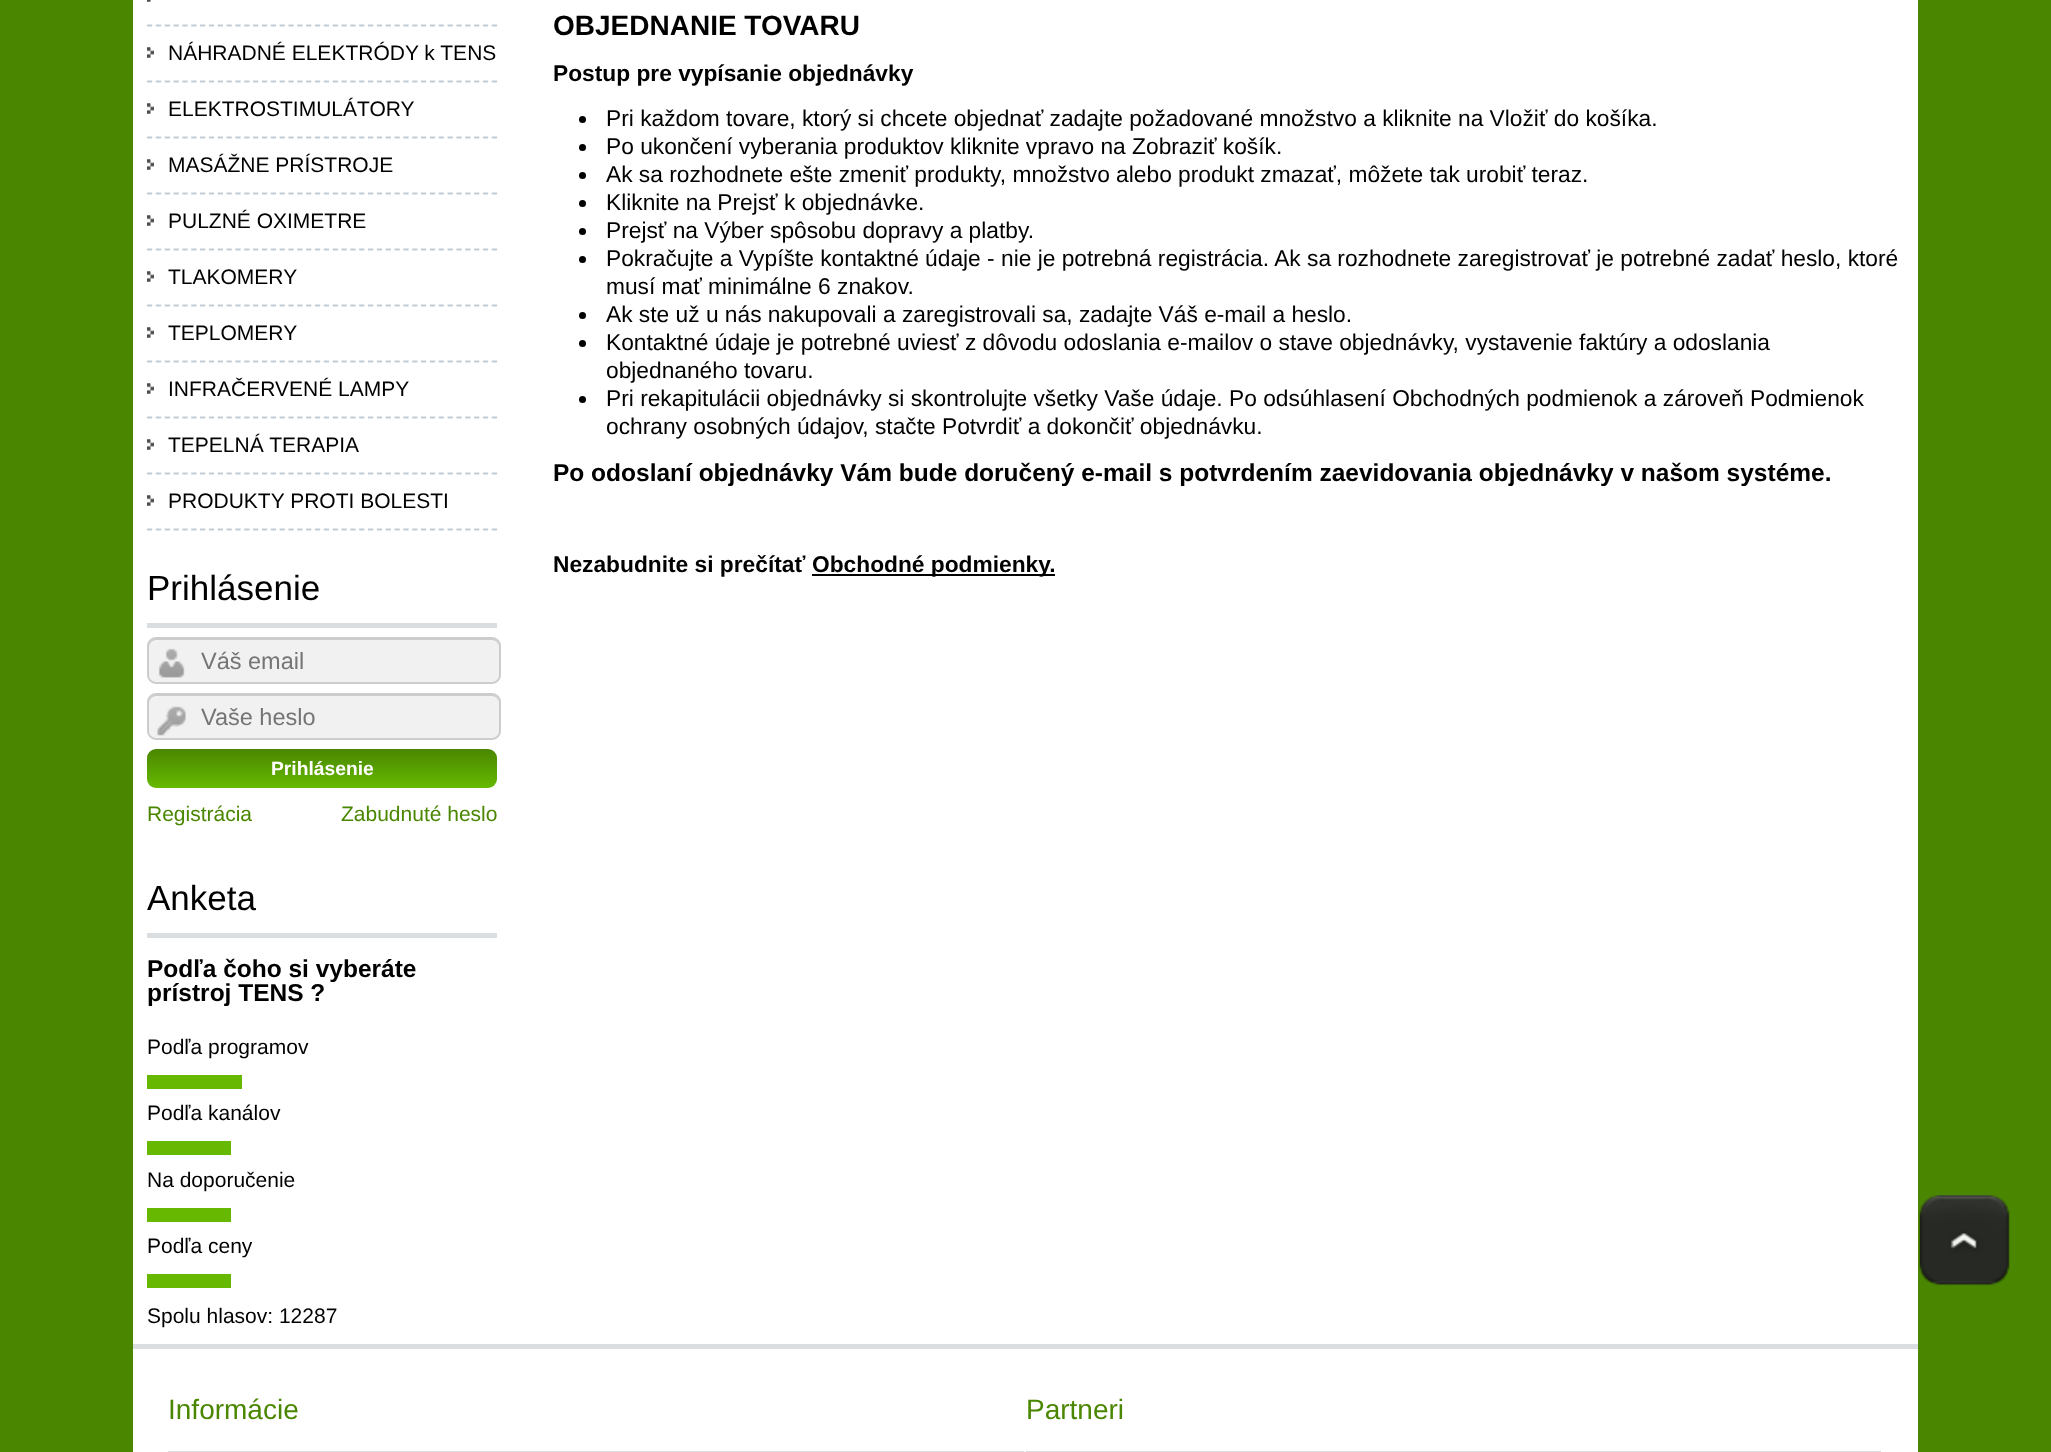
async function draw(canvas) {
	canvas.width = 2051;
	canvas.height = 1452;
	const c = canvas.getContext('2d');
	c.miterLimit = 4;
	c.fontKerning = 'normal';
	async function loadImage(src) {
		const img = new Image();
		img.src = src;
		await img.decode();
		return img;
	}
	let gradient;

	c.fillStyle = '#4a8600';
	c.fillRect(0, 0, 2051, 1452);
	c.fillStyle = '#fff';
	c.fillRect(133, 0, 1785, 1452);
	c.beginPath();
	c.moveTo(147, 25.5);
	c.lineTo(497, 25.5);
	c.strokeStyle = '#c2cbd3';
	c.lineWidth = 1.8;
	c.setLineDash([5.25, 3.59]);
	c.stroke();
	c.drawImage(await loadImage('img1.png'), 147, 0, 4, 2);
	c.beginPath();
	c.moveTo(147, 81.5);
	c.lineTo(497, 81.5);
	c.stroke();
	c.drawImage(await loadImage('img2.png'), 147, 47, 7, 11);
	c.font = '21px Liberation Sans';
	c.fillStyle = '#000';
	c.fillText('NÁHRADNÉ ELEKTRÓDY k TENS', 168, 60);
	c.beginPath();
	c.moveTo(147, 137.5);
	c.lineTo(497, 137.5);
	c.stroke();
	c.drawImage(await loadImage('img2.png'), 147, 103, 7, 11);
	c.fillText('ELEKTROSTIMULÁTORY', 168, 116);
	c.beginPath();
	c.moveTo(147, 193.5);
	c.lineTo(497, 193.5);
	c.stroke();
	c.drawImage(await loadImage('img2.png'), 147, 159, 7, 11);
	c.fillText('MASÁŽNE PRÍSTROJE', 168, 172);
	c.beginPath();
	c.moveTo(147, 249.5);
	c.lineTo(497, 249.5);
	c.stroke();
	c.drawImage(await loadImage('img2.png'), 147, 215, 7, 11);
	c.fillText('PULZNÉ OXIMETRE', 168, 228);
	c.beginPath();
	c.moveTo(147, 305.5);
	c.lineTo(497, 305.5);
	c.stroke();
	c.drawImage(await loadImage('img2.png'), 147, 271, 7, 11);
	c.fillText('TLAKOMERY', 168, 284);
	c.beginPath();
	c.moveTo(147, 361.5);
	c.lineTo(497, 361.5);
	c.stroke();
	c.drawImage(await loadImage('img2.png'), 147, 327, 7, 11);
	c.fillText('TEPLOMERY', 168, 340);
	c.beginPath();
	c.moveTo(147, 417.5);
	c.lineTo(497, 417.5);
	c.stroke();
	c.drawImage(await loadImage('img2.png'), 147, 383, 7, 11);
	c.fillText('INFRAČERVENÉ LAMPY', 168, 396);
	c.beginPath();
	c.moveTo(147, 473.5);
	c.lineTo(497, 473.5);
	c.stroke();
	c.drawImage(await loadImage('img2.png'), 147, 439, 7, 11);
	c.fillText('TEPELNÁ TERAPIA', 168, 452);
	c.beginPath();
	c.moveTo(147, 529.5);
	c.lineTo(497, 529.5);
	c.stroke();
	c.drawImage(await loadImage('img2.png'), 147, 495, 7, 11);
	c.fillText('PRODUKTY PROTI BOLESTI', 168, 508);
	c.fillStyle = '#dbdee1';
	c.fillRect(147, 623, 350, 5);
	c.font = '35px Liberation Sans';
	c.fillStyle = '#000';
	c.fillText('Prihlásenie', 147, 600);
	c.fillStyle = '#f1f1f1';
	c.beginPath();
	c.roundRect(147, 637, 354, 47, 9);
	c.fill();
	c.drawImage(await loadImage('img3.png'), 158, 648, 27, 30);
	c.fillStyle = '#ccc';
	c.beginPath();
	c.moveTo(156, 640);
	c.lineTo(492, 640);
	c.bezierCurveTo(496, 640, 499, 644, 499, 648);
	c.bezierCurveTo(499, 644, 497, 639, 492, 639);
	c.lineTo(155, 639);
	c.bezierCurveTo(150, 640, 149, 644, 149, 648);
	c.bezierCurveTo(149, 644, 152, 640, 156, 640);
	c.closePath();
	c.fill();
	c.beginPath();
	c.roundRect(148, 638, 352, 45, 8);
	c.strokeStyle = '#ccc';
	c.lineWidth = 2;
	c.setLineDash([]);
	c.stroke();
	c.font = '23.5px Liberation Sans';
	c.fillStyle = '#757575';
	c.fillText('Váš email', 201, 669);
	c.fillStyle = '#f1f1f1';
	c.beginPath();
	c.roundRect(147, 693, 354, 47, 9);
	c.fill();
	c.drawImage(await loadImage('img4.png'), 157, 706, 29, 30);
	c.fillStyle = '#ccc';
	c.beginPath();
	c.moveTo(156, 696);
	c.lineTo(492, 696);
	c.bezierCurveTo(496, 696, 499, 700, 499, 704);
	c.bezierCurveTo(499, 700, 497, 695, 492, 695);
	c.lineTo(155, 695);
	c.bezierCurveTo(150, 696, 149, 700, 149, 704);
	c.bezierCurveTo(149, 700, 152, 696, 156, 696);
	c.closePath();
	c.fill();
	c.beginPath();
	c.roundRect(148, 694, 352, 45, 8);
	c.stroke();
	c.fillStyle = '#757575';
	c.fillText('Vaše heslo', 201, 725);
	gradient = c.createLinearGradient(322, 749, 322, 788);
	gradient.addColorStop(0, '#4a8600');
	gradient.addColorStop(1, '#66b900');
	c.fillStyle = gradient;
	c.beginPath();
	c.roundRect(147, 749, 350, 39, 9);
	c.fill();
	c.font = 'bold 19.25px Liberation Sans';
	c.fillStyle = '#fff';
	c.fillText('Prihlásenie', 271, 775);
	c.font = '21px Liberation Sans';
	c.fillStyle = '#4a8600';
	c.fillText('Registrácia', 147, 821);
	c.fillText('Zabudnuté heslo', 341, 821);
	c.fillStyle = '#dbdee1';
	c.fillRect(147, 933, 350, 5);
	c.font = '35px Liberation Sans';
	c.fillStyle = '#000';
	c.fillText('Anketa', 147, 910);
	c.font = 'bold 24.5px Liberation Sans';
	c.fillText('Podľa čoho si vyberáte', 147, 977);
	c.fillText('prístroj TENS ?', 147, 1001);
	c.font = '21px Liberation Sans';
	c.fillText('Podľa programov', 147, 1054);
	c.fillStyle = '#66b900';
	c.fillRect(147, 1075, 95, 14);
	c.fillStyle = '#000';
	c.fillText('Podľa kanálov', 147, 1120);
	c.fillStyle = '#66b900';
	c.fillRect(147, 1141, 84, 14);
	c.fillStyle = '#000';
	c.fillText('Na doporučenie', 147, 1187);
	c.fillStyle = '#66b900';
	c.fillRect(147, 1208, 84, 14);
	c.fillStyle = '#000';
	c.fillText('Podľa ceny', 147, 1253);
	c.fillStyle = '#66b900';
	c.fillRect(147, 1274, 84, 14);
	c.fillStyle = '#000';
	c.fillText('Spolu hlasov: 12287', 147, 1323);
	c.font = 'bold 28px Liberation Sans';
	c.fillText('OBJEDNANIE TOVARU', 553, 35);
	c.font = 'bold 22.75px Liberation Sans';
	c.fillText('Postup pre vypísanie objednávky', 553, 81);
	c.beginPath();
	c.arc(582.5, 119.5, 3.5, 0, 2 * Math.PI);
	c.fill();
	c.font = '22.75px Liberation Sans';
	c.fillText('Pri každom tovare, ktorý si chcete objednať zadajte požadované množstvo a kliknite na Vložiť do košíka.', 606, 126);
	c.beginPath();
	c.arc(582.5, 147.5, 3.5, 0, 2 * Math.PI);
	c.fill();
	c.fillText('Po ukončení vyberania produktov kliknite vpravo na Zobraziť košík.', 606, 154);
	c.beginPath();
	c.arc(582.5, 175.5, 3.5, 0, 2 * Math.PI);
	c.fill();
	c.fillText('Ak sa rozhodnete ešte zmeniť produkty, množstvo alebo produkt zmazať, môžete tak urobiť teraz.', 606, 182);
	c.beginPath();
	c.arc(582.5, 203.5, 3.5, 0, 2 * Math.PI);
	c.fill();
	c.fillText('Kliknite na Prejsť k objednávke.', 606, 210);
	c.beginPath();
	c.arc(582.5, 231.5, 3.5, 0, 2 * Math.PI);
	c.fill();
	c.fillText('Prejsť na Výber spôsobu dopravy a platby.', 606, 238);
	c.beginPath();
	c.arc(582.5, 259.5, 3.5, 0, 2 * Math.PI);
	c.fill();
	c.fillText('Pokračujte a Vypíšte kontaktné údaje - nie je potrebná registrácia. Ak sa rozhodnete zaregistrovať je potrebné zadať heslo, ktoré', 606, 266);
	c.fillText('musí mať minimálne 6 znakov.', 606, 294);
	c.beginPath();
	c.arc(582.5, 315.5, 3.5, 0, 2 * Math.PI);
	c.fill();
	c.fillText('Ak ste už u nás nakupovali a zaregistrovali sa, zadajte Váš e-mail a heslo.', 606, 322);
	c.beginPath();
	c.arc(582.5, 343.5, 3.5, 0, 2 * Math.PI);
	c.fill();
	c.fillText('Kontaktné údaje je potrebné uviesť z dôvodu odoslania e-mailov o stave objednávky, vystavenie faktúry a odoslania', 606, 350);
	c.fillText('objednaného tovaru.', 606, 378);
	c.beginPath();
	c.arc(582.5, 399.5, 3.5, 0, 2 * Math.PI);
	c.fill();
	c.fillText('Pri rekapitulácii objednávky si skontrolujte všetky Vaše údaje. Po odsúhlasení Obchodných podmienok a zároveň Podmienok', 606, 406);
	c.fillText('ochrany osobných údajov, stačte Potvrdiť a dokončiť objednávku.', 606, 434);
	c.font = 'bold 24.5px Liberation Sans';
	c.fillText('Po odoslaní objednávky Vám bude doručený e-mail s potvrdením zaevidovania objednávky v našom systéme.', 553, 481);
	c.font = 'bold 22.75px Liberation Sans';
	c.fillText('Nezabudnite si prečítať', 553, 572);
	c.fillRect(812, 574, 243, 2);
	c.fillText('Obchodné podmienky.', 812, 572);
	c.fillStyle = '#dbdee1';
	c.fillRect(133, 1344, 1785, 5);
	c.fillRect(168, 1451, 856, 1);
	c.font = '28px Liberation Sans';
	c.fillStyle = '#4a8600';
	c.fillText('Informácie', 168, 1419);
	c.fillStyle = '#dbdee1';
	c.fillRect(1026, 1451, 855, 1);
	c.fillStyle = '#4a8600';
	c.fillText('Partneri', 1026, 1419);
	c.drawImage(await loadImage('img5.png'), 1919, 1195, 91, 91);
}

draw(document.querySelector('canvas'));
